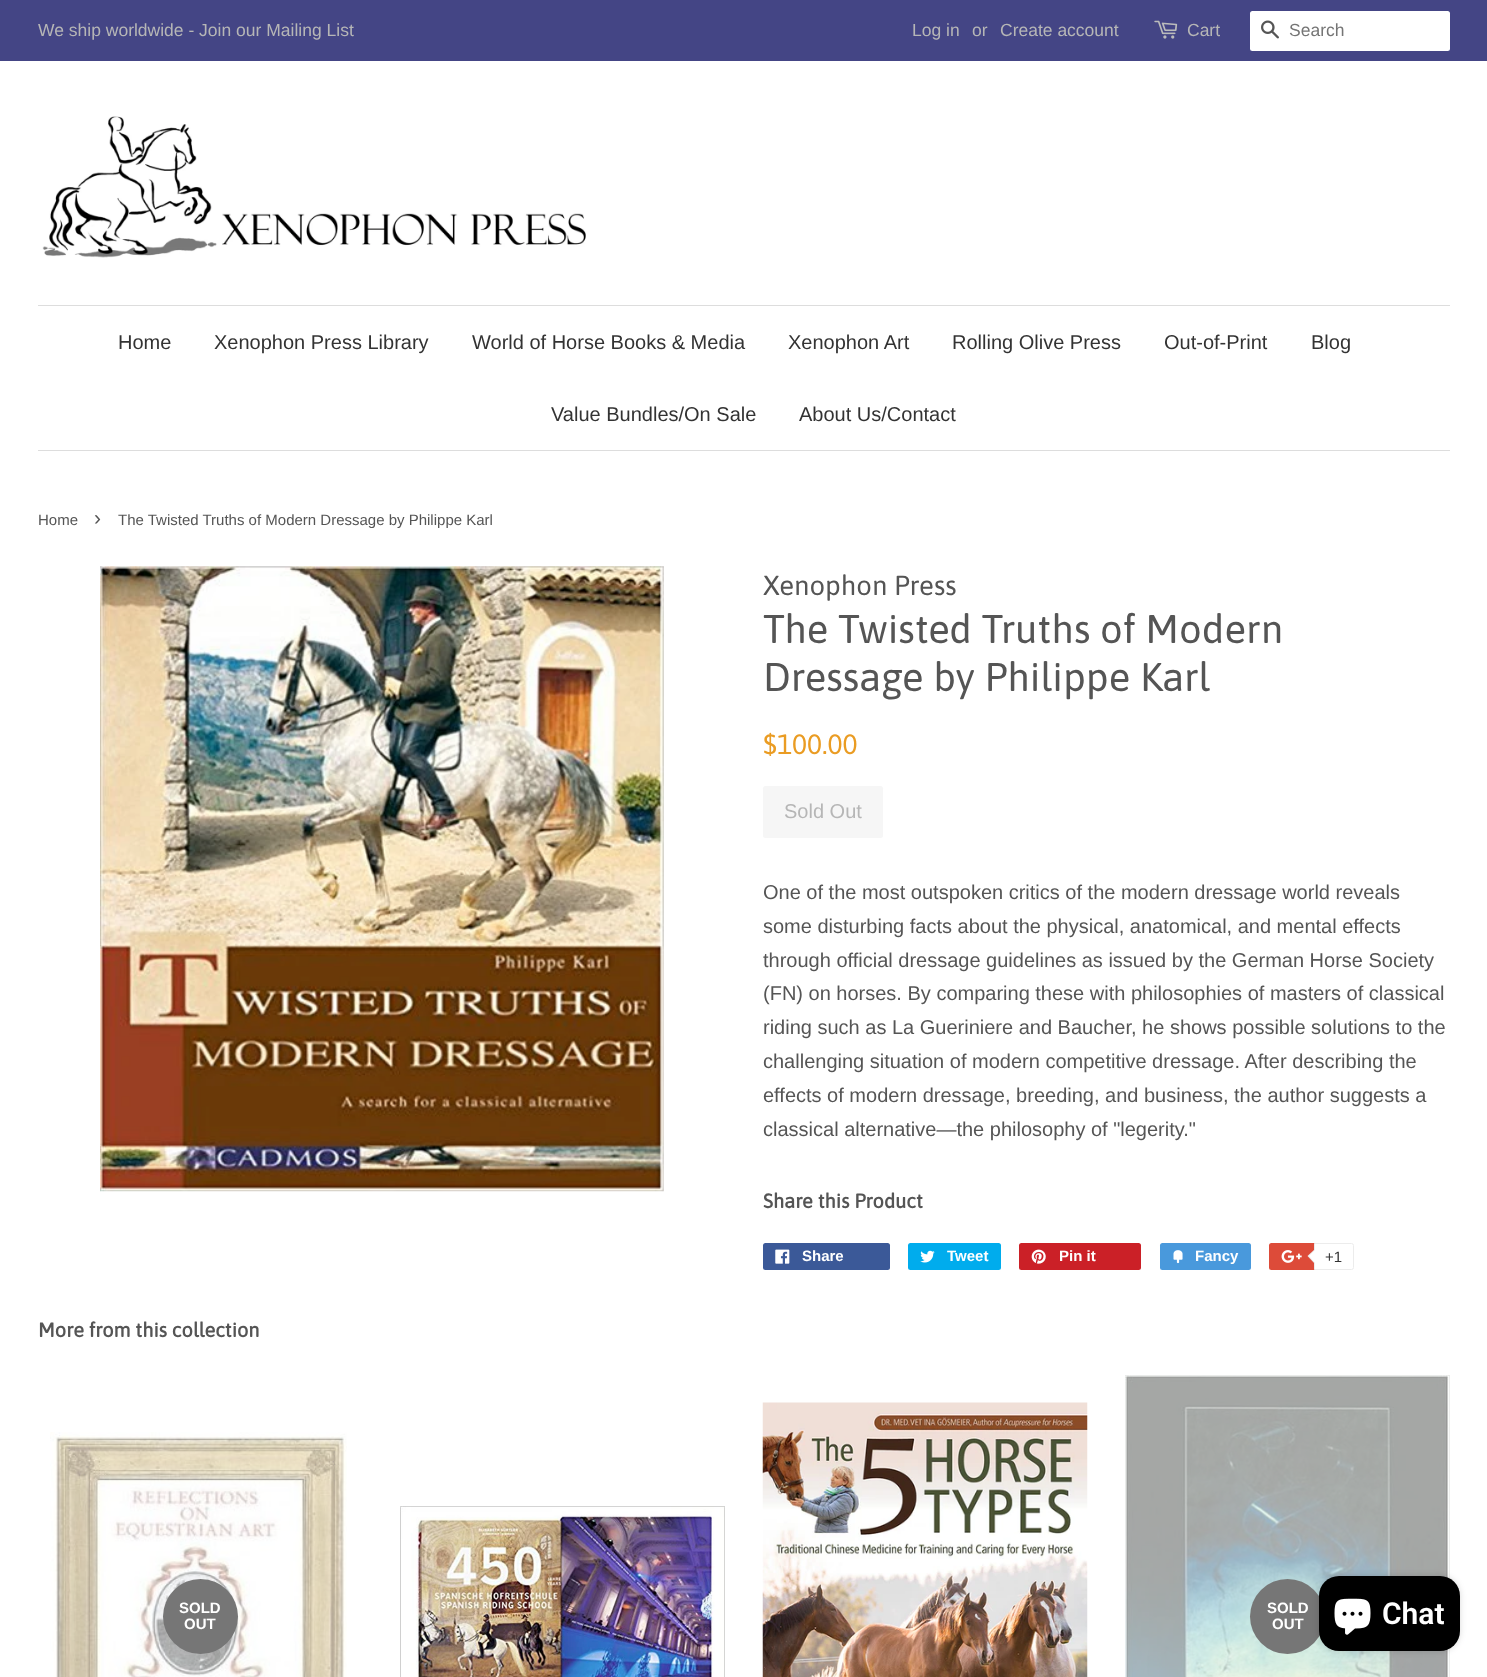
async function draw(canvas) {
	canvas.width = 1487;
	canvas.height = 1677;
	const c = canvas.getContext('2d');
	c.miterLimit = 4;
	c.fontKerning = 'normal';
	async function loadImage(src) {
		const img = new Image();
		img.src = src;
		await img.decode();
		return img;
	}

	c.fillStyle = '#fff';
	c.fillRect(0, 0, 1487, 1677);
	c.fillStyle = '#444585';
	c.fillRect(0, 0, 1487, 61);
	c.font = '17.5px Liberation Sans';
	c.fillStyle = '#b6b6b6';
	for (const [text, x, y] of [
		['We ship worldwide - Join our Mailing List', 38, 36],
		['Log in', 912, 36],
		['or', 972, 36],
		['Create account', 1000, 36],
	]) {
		c.fillText(text, x, y);
	}
	c.drawImage(await loadImage('img1.png'), 1154, 20, 24, 19);
	c.fillText('Cart', 1187, 36);
	c.fillStyle = '#fff';
	c.beginPath();
	c.roundRect(1250, 11, 200, 40, 2.5);
	c.fill();
	c.drawImage(await loadImage('img2.png'), 1261, 20, 18, 19);
	c.fillStyle = '#757575';
	c.fillText('Search', 1289, 36);
	c.drawImage(await loadImage('img3.png'), 42, 116, 544, 142);
	c.fillStyle = '#ddd';
	c.fillRect(38, 305, 1412, 1);
	c.fillRect(38, 450, 1412, 1);
	c.font = '20px Liberation Sans';
	c.fillStyle = '#333';
	for (const [text, x, y] of [
		['Home', 118, 349],
		['Xenophon Press Library', 214, 349],
		['World of Horse Books & Media', 472, 349],
		['Xenophon Art', 788, 349],
		['Rolling Olive Press', 952, 349],
		['Out-of-Print', 1164, 349],
		['Blog', 1311, 349],
		['Value Bundles/On Sale', 551, 421],
		['About Us/Contact', 799, 421],
	]) {
		c.fillText(text, x, y);
	}
	c.font = '15px Liberation Sans';
	c.fillStyle = '#555';
	c.fillText('Home', 38, 525);
	c.font = '21px Liberation Sans';
	c.fillText('›', 94, 525);
	c.font = '15px Liberation Sans';
	c.fillText('The Twisted Truths of Modern Dressage by Philippe Karl', 118, 525);
	c.drawImage(await loadImage('img4.png'), 100, 566, 564, 626);
	c.font = '27.5px Asap';
	c.fillText('Xenophon Press', 763, 595);
	c.font = '40px Asap';
	c.fillText('The Twisted Truths of Modern', 763, 643);
	c.fillText('Dressage by Philippe Karl', 763, 691);
	c.font = '28px Asap';
	c.fillStyle = '#ea9c23';
	c.fillText('$100.00', 763, 754);
	c.fillStyle = '#f6f6f6';
	c.beginPath();
	c.roundRect(763, 786, 120, 52, 2.5);
	c.fill();
	c.font = '20px Liberation Sans';
	c.fillStyle = '#b6b6b6';
	c.fillText('Sold Out', 784, 818);
	c.fillStyle = '#555';
	for (const [text, x, y] of [
		['One of the most outspoken critics of the modern dressage world reveals', 763, 899],
		['some disturbing facts about the physical, anatomical, and mental effects', 763, 933],
		['through official dressage guidelines as issued by the German Horse Society', 763, 967],
		['(FN) on horses. By comparing these with philosophies of masters of classical', 763, 1000],
		['riding such as La Gueriniere and Baucher, he shows possible solutions to the', 763, 1034],
		['challenging situation of modern competitive dressage. After describing the', 763, 1068],
		['effects of modern dressage, breeding, and business, the author suggests a', 763, 1102],
		['classical alternative—the philosophy of "legerity."', 763, 1136],
	]) {
		c.fillText(text, x, y);
	}
	c.font = 'bold 20px Asap';
	c.fillText('Share this Product', 763, 1208);
	c.fillStyle = '#3b5998';
	c.beginPath();
	c.roundRect(763, 1243, 127, 27, 2.5);
	c.fill();
	c.drawImage(await loadImage('img5.png'), 775, 1249, 15, 15);
	c.font = 'bold 15px Liberation Sans';
	c.fillStyle = '#fff';
	c.fillText('Share', 802, 1261);
	c.fillStyle = '#00aced';
	c.beginPath();
	c.roundRect(908, 1243, 93, 27, 2.5);
	c.fill();
	c.drawImage(await loadImage('img6.png'), 920, 1250, 15, 13);
	c.fillStyle = '#fff';
	c.fillText('Tweet', 947, 1261);
	c.fillStyle = '#cb2027';
	c.beginPath();
	c.roundRect(1019, 1243, 122, 27, 2.5);
	c.fill();
	c.drawImage(await loadImage('img7.png'), 1031, 1249, 15, 15);
	c.fillStyle = '#fff';
	c.fillText('Pin it', 1059, 1261);
	c.fillStyle = '#4999dc';
	c.beginPath();
	c.roundRect(1160, 1243, 91, 27, 2.5);
	c.fill();
	c.drawImage(await loadImage('img8.png'), 1173, 1250, 10, 14);
	c.fillStyle = '#fff';
	c.fillText('Fancy', 1195, 1261);
	c.fillStyle = '#dd4b39';
	c.beginPath();
	c.roundRect(1269, 1243, 82, 27, 2.5);
	c.fill();
	c.drawImage(await loadImage('img9.png'), 1281, 1250, 21, 13);
	c.fillStyle = '#fff';
	c.beginPath();
	c.roundRect(1314.5, 1243.5, 39, 26, [0, 2, 2, 0]);
	c.fill();
	c.strokeStyle = '#ececec';
	c.stroke();
	c.fillStyle = '#ececec';
	c.beginPath();
	c.moveTo(1315, 1249);
	c.lineTo(1315, 1264);
	c.lineTo(1307.5, 1256);
	c.closePath();
	c.fill();
	c.fillStyle = '#fff';
	c.beginPath();
	c.moveTo(1316, 1249);
	c.lineTo(1316, 1264);
	c.lineTo(1309, 1256);
	c.closePath();
	c.fill();
	c.font = '15px Liberation Sans';
	c.fillStyle = '#333';
	c.fillText('+1', 1325, 1262);
	c.font = 'bold 20px Asap';
	c.fillStyle = '#555';
	c.fillText('More from this collection', 38, 1337);
	c.drawImage(await loadImage('img10.png'), 50, 1432, 297, 245);
	c.fillStyle = '#767676';
	c.beginPath();
	c.arc(200.5, 1616.5, 37.5, 0, 2 * Math.PI);
	c.fill();
	c.font = 'bold 15px Liberation Sans';
	c.fillStyle = '#fff';
	c.fillText('SOLD', 179, 1613);
	c.fillText('OUT', 184, 1629);
	c.drawImage(await loadImage('img11.png'), 400, 1506, 325, 171);
	c.drawImage(await loadImage('img12.png'), 762, 1402, 326, 275);
	c.drawImage(await loadImage('img13.png'), 1125, 1375, 325, 302);
	c.fillStyle = '#767676';
	c.beginPath();
	c.arc(1287.5, 1616.5, 37.5, 0, 2 * Math.PI);
	c.fill();
	c.fillStyle = '#fff';
	c.fillText('SOLD', 1267, 1613);
	c.fillText('OUT', 1272, 1629);
	c.fillStyle = '#00000026';
	c.filter = 'blur(3px)';
	c.beginPath();
	c.roundRect(1319, 1576, 141, 75, 20);
	c.fill();
	c.filter = 'none';
	c.fillStyle = '#000';
	c.beginPath();
	c.roundRect(1319, 1576, 141, 75, 20);
	c.fill();
	c.drawImage(await loadImage('img14.png'), 1334, 1598, 37, 37);
	c.font = '600 30px Roboto';
	c.fillStyle = '#fff';
	c.fillText('Chat', 1382, 1624);
}

draw(document.querySelector('canvas'));
